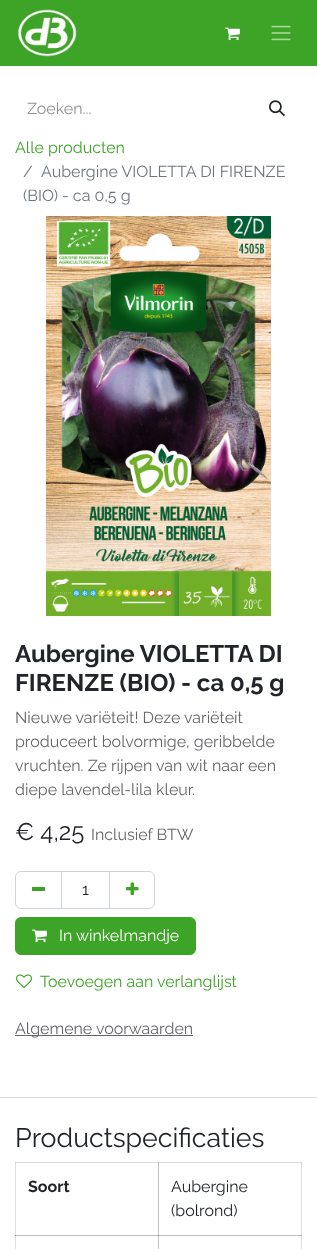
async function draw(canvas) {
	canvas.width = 317;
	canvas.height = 1249;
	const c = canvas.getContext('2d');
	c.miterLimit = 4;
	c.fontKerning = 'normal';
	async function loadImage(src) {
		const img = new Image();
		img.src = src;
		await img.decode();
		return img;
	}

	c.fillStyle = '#fff';
	c.fillRect(0, 0, 317, 1249);
	for (const [x, y, w, h, color] of [
		[15, 1162, 1, 87, '#dededf'],
		[158, 1162, 1, 87, '#c2c2c4'],
		[301, 1162, 1, 87, '#dededf'],
		[0, 0, 317, 66, '#3ea427'],
	]) {
		c.fillStyle = color;
		c.fillRect(x, y, w, h);
	}
	c.drawImage(await loadImage('img1.png'), 18, 9, 59, 48);
	c.drawImage(await loadImage('img2.png'), 225, 27, 15, 14);
	c.drawImage(await loadImage('img3.png'), 271, 25, 20, 16);
	c.font = '16px Raleway';
	c.fillStyle = '#909294';
	c.fillText('Zoeken...', 27, 114);
	c.drawImage(await loadImage('img4.png'), 269, 100, 16, 17);
	c.fillStyle = '#3ea427';
	c.fillText('Alle producten', 15, 153);
	c.fillStyle = '#6c757d';
	for (const [text, x, y] of [
		['/', 23, 177],
		['Aubergine VIOLETTA DI FIRENZE', 41, 177],
		['(BIO) - ca 0,5 g', 23, 201],
	]) {
		c.fillText(text, x, y);
	}
	c.drawImage(await loadImage('img5.png'), 46, 216, 225, 400);
	c.font = 'bold 24px Raleway';
	c.fillStyle = '#212529';
	c.fillText('Aubergine VIOLETTA DI', 15, 662);
	c.fillText('FIRENZE (BIO) - ca 0,5 g', 15, 691);
	c.font = '16px Raleway';
	c.fillStyle = '#646669';
	for (const [text, x, y] of [
		['Nieuwe variëteit! Deze variëteit', 15, 723],
		['produceert bolvormige, geribbelde', 15, 747],
		['vruchten. Ze rijpen van wit naar een', 15, 771],
		['diepe lavendel-lila kleur.', 15, 795],
	]) {
		c.fillText(text, x, y);
	}
	c.font = '24px Raleway';
	c.fillStyle = '#212529';
	c.fillText('€ 4,25', 15, 840);
	c.font = '16px Raleway';
	c.fillStyle = '#646669';
	c.fillText('Inclusief BTW', 91, 840);
	c.strokeStyle = '#ced4da';
	c.strokeRect(61.5, 871.5, 48, 37);
	c.beginPath();
	c.roundRect(15.5, 871.5, 46, 37, [5.5, 0, 0, 5.5]);
	c.stroke();
	c.fillStyle = '#3ea427';
	c.fillRect(32, 887, 13, 4);
	c.fillStyle = '#212529';
	c.fillText('1', 82, 895);
	c.beginPath();
	c.roundRect(109.5, 871.5, 45, 37, [0, 5.5, 5.5, 0]);
	c.stroke();
	c.drawImage(await loadImage('img6.png'), 126, 882, 13, 13);
	c.fillStyle = '#3ea427';
	c.beginPath();
	c.roundRect(15.5, 917.5, 180, 37, 5.5);
	c.fill();
	c.strokeStyle = '#3ea427';
	c.stroke();
	c.drawImage(await loadImage('img2.png'), 32, 929, 15, 14);
	c.fillStyle = '#fff';
	c.fillText('In winkelmandje', 59, 941);
	c.drawImage(await loadImage('img7.png'), 16, 974, 16, 15);
	c.fillStyle = '#3ea427';
	c.fillText('Toevoegen aan verlanglijst', 40, 987);
	c.fillStyle = '#646669';
	c.fillRect(15, 1035, 178, 1);
	c.fillText('Algemene voorwaarden', 15, 1034);
	c.fillStyle = '#dededf';
	c.fillRect(0, 1097, 317, 1);
	c.font = '26.75px Raleway';
	c.fillStyle = '#212529';
	c.fillText('Productspecificaties', 15, 1147);
	for (const [x, y, w, h, color] of [
		[15, 1162, 287, 1, '#dededf'],
		[15, 1162, 1, 1, '#c2c2c4'],
		[158, 1162, 1, 1, '#aaaaad'],
		[301, 1162, 1, 1, '#c2c2c4'],
		[15, 1235, 287, 1, '#c2c2c4'],
		[15, 1235, 1, 1, '#959699'],
		[158, 1235, 1, 1, '#75777a'],
		[301, 1235, 1, 1, '#959699'],
	]) {
		c.fillStyle = color;
		c.fillRect(x, y, w, h);
	}
	c.font = 'bold 16px Raleway';
	c.fillStyle = '#212529';
	c.fillText('Soort', 28, 1192);
	c.font = '16px Raleway';
	c.fillText('Aubergine', 171, 1192);
	c.fillText('(bolrond)', 171, 1216);
}

draw(document.querySelector('canvas'));
